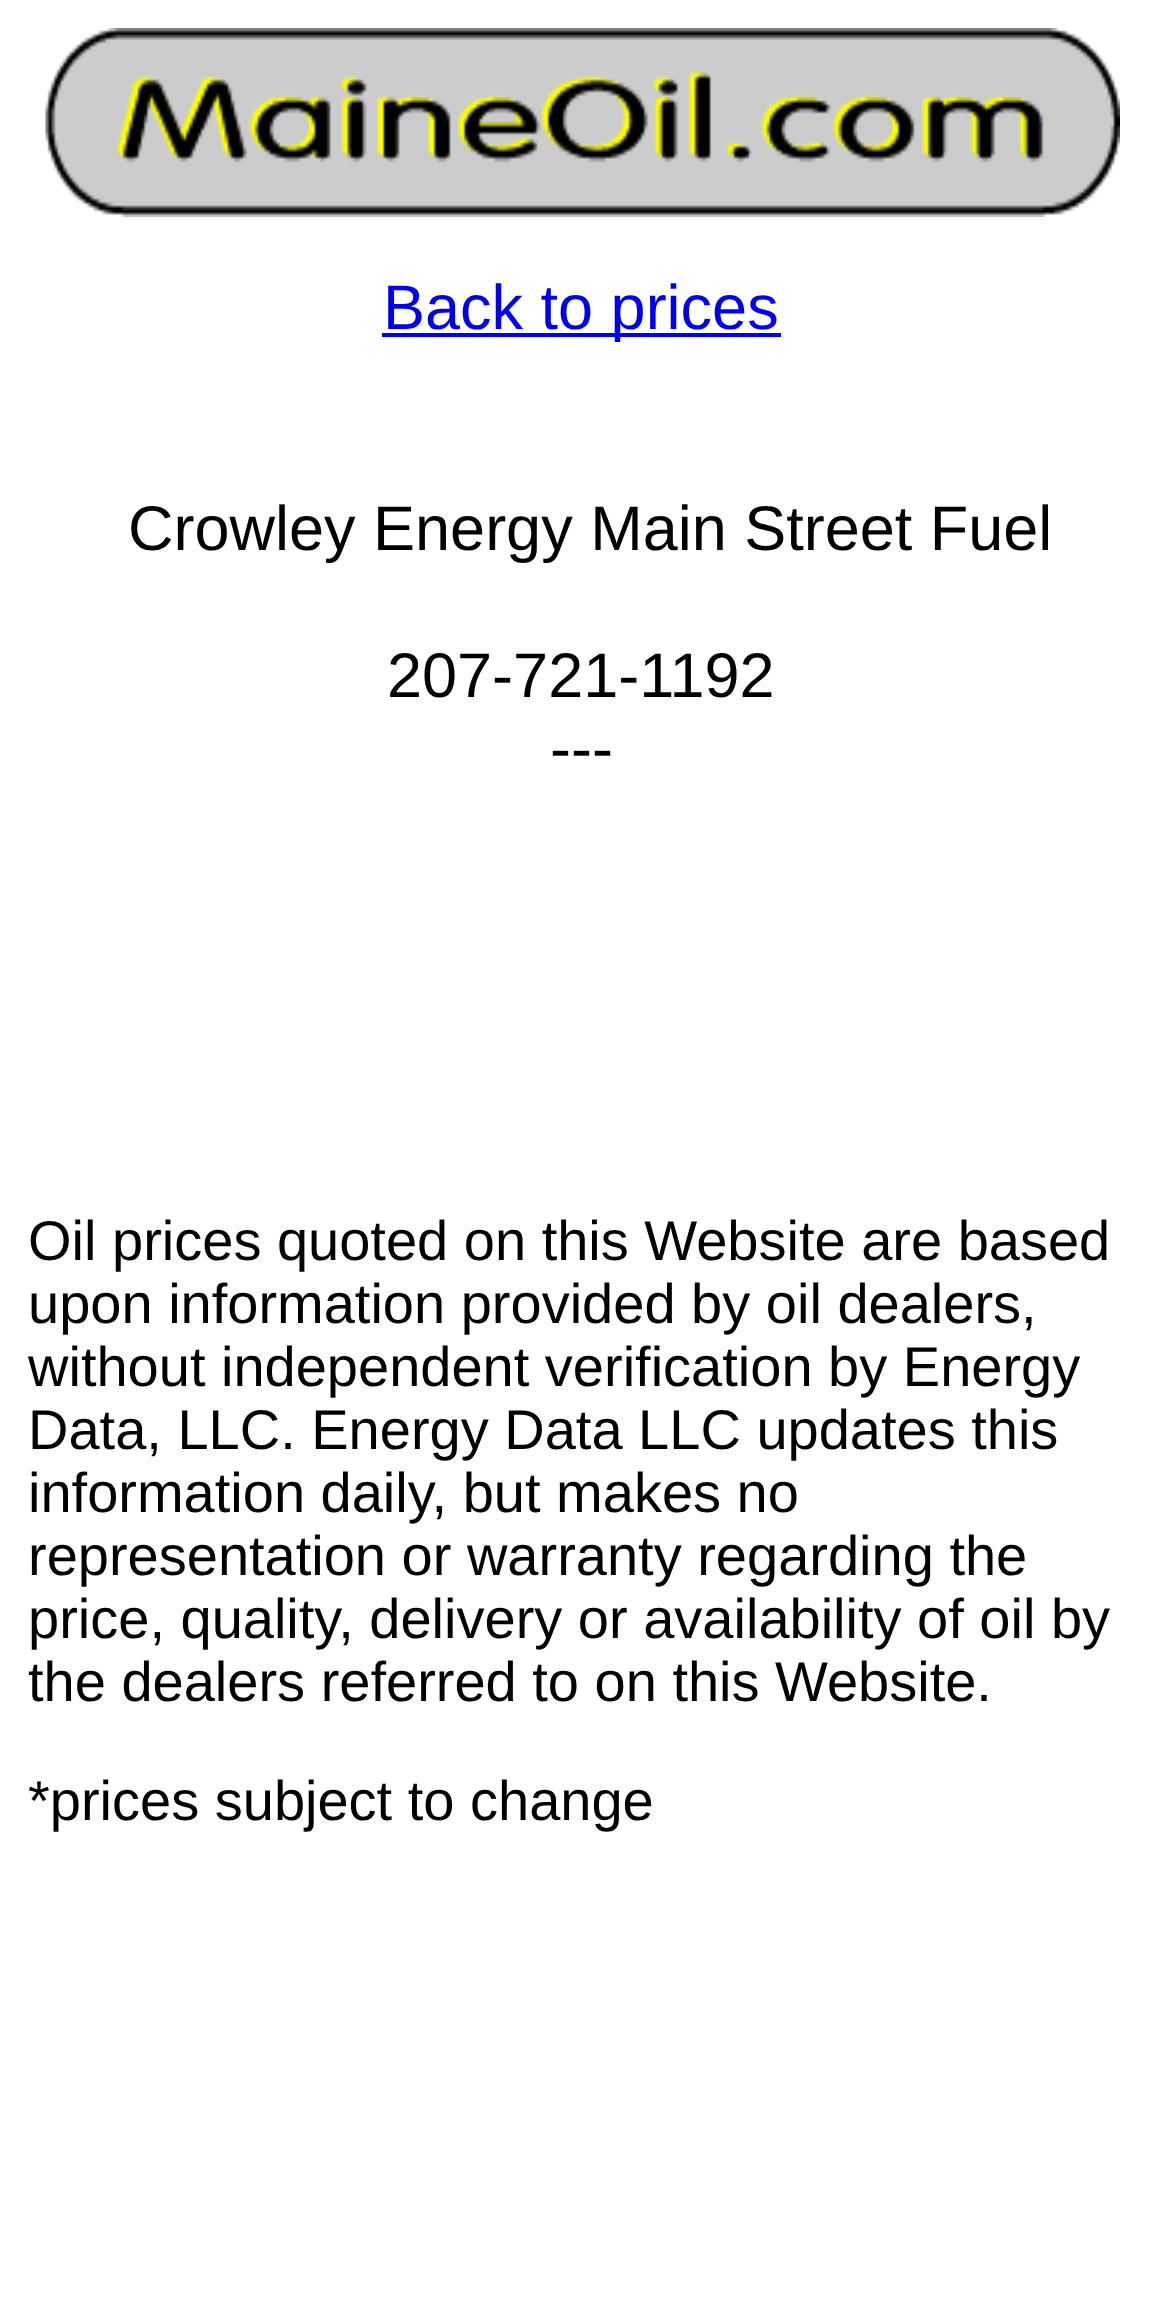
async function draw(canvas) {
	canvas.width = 1159;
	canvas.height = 2319;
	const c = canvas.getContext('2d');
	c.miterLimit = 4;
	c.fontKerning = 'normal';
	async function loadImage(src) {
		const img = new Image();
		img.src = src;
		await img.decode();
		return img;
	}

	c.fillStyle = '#fff';
	c.fillRect(0, 0, 1159, 2319);
	c.drawImage(await loadImage('img1.png'), 45, 28, 1075, 189);
	c.fillStyle = '#00e';
	c.fillRect(382, 333, 399, 4);
	c.font = '63px Liberation Sans';
	c.fillText('Back to prices', 383, 329);
	c.fillStyle = '#000';
	for (const [text, x, y] of [
		['Crowley Energy Main Street Fuel', 128, 550],
		['207-721-1192', 387, 697],
		['---', 550, 770],
	]) {
		c.fillText(text, x, y);
	}
	c.font = '56px Liberation Sans';
	for (const [text, x, y] of [
		['Oil prices quoted on this Website are based', 28, 1260],
		['upon information provided by oil dealers,', 28, 1323],
		['without independent verification by Energy', 28, 1386],
		['Data, LLC. Energy Data LLC updates this', 28, 1449],
		['information daily, but makes no', 28, 1512],
		['representation or warranty regarding the', 28, 1575],
		['price, quality, delivery or availability of oil by', 28, 1638],
		['the dealers referred to on this Website.', 28, 1701],
		['*prices subject to change', 28, 1820],
	]) {
		c.fillText(text, x, y);
	}
}

draw(document.querySelector('canvas'));
